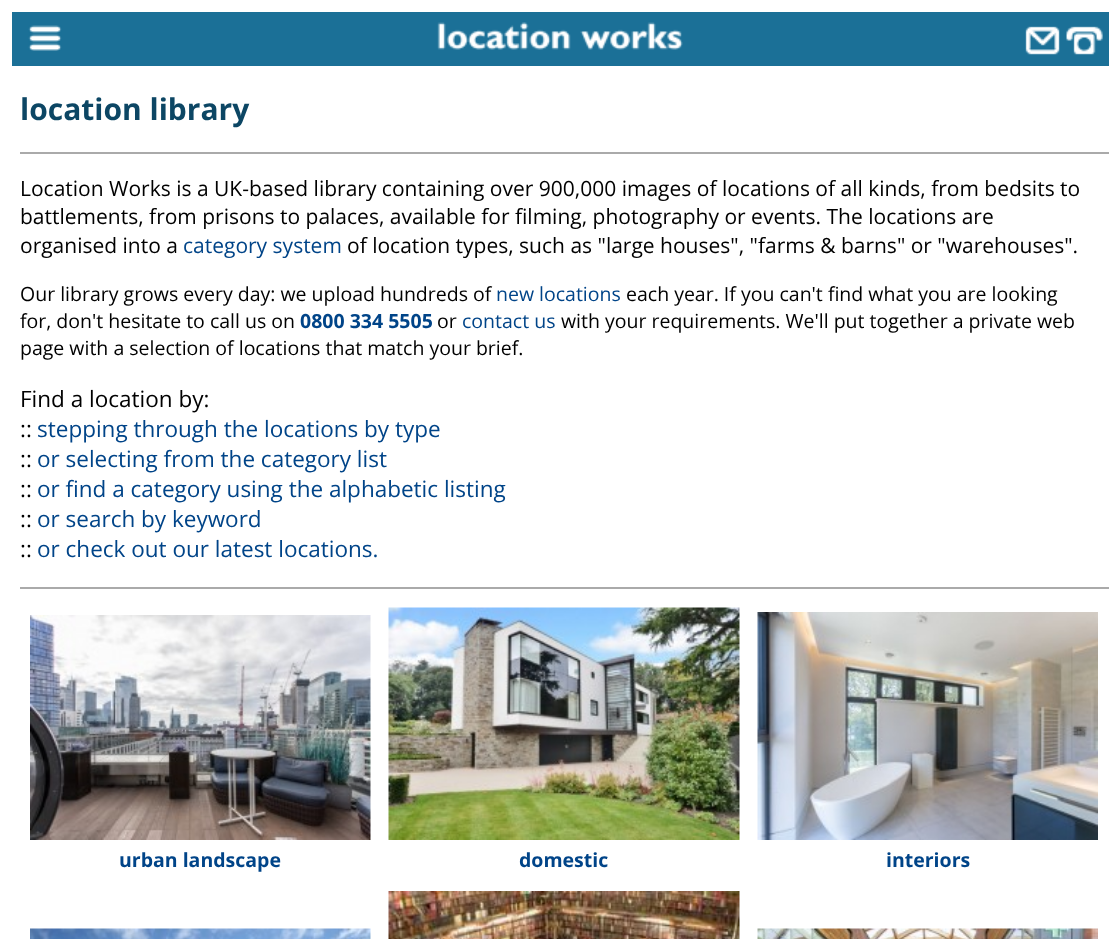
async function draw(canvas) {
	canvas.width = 1120;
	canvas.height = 939;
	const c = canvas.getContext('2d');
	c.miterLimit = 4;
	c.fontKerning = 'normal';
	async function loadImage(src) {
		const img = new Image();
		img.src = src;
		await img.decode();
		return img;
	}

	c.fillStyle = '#fff';
	c.fillRect(0, 0, 1120, 939);
	c.fillStyle = '#1b7097';
	c.fillRect(12, 12, 1097, 54);
	c.drawImage(await loadImage('img1.png'), 28, 25, 34, 26);
	c.drawImage(await loadImage('img2.png'), 437, 22, 246, 28);
	c.drawImage(await loadImage('img3.png'), 1025, 26, 35, 29);
	c.drawImage(await loadImage('img4.png'), 1066, 26, 37, 29);
	c.font = 'bold 30px Open Sans';
	c.fillStyle = '#0c4664';
	c.fillText('location library', 20, 120);
	c.fillStyle = '#aaa';
	c.fillRect(20, 152, 1089, 2);
	c.font = '21px Open Sans';
	c.fillStyle = '#000';
	for (const [text, x, y] of [
		['Location Works is a UK-based library containing over 900,000 images of locations of all kinds, from bedsits to', 20, 196],
		['battlements, from prisons to palaces, available for filming, photography or events. The locations are', 20, 224],
		['organised into a', 20, 253],
	]) {
		c.fillText(text, x, y);
	}
	c.fillStyle = '#048';
	c.fillText('category system', 183, 253);
	c.fillStyle = '#000';
	c.fillText('of location types, such as "large houses", "farms & barns" or "warehouses".', 347, 253);
	c.font = '19.5px Open Sans';
	c.fillText('Our library grows every day: we upload hundreds of', 20, 301);
	c.fillStyle = '#048';
	c.fillText('new locations', 496, 301);
	c.fillStyle = '#000';
	c.fillText('each year. If you can\'t find what you are looking', 626, 301);
	c.fillText('for, don\'t hesitate to call us on', 20, 328);
	c.font = 'bold 19.5px Open Sans';
	c.fillStyle = '#048';
	c.fillText('0800 334 5505', 300, 328);
	c.font = '19.5px Open Sans';
	c.fillStyle = '#000';
	c.fillText('or', 437, 328);
	c.fillStyle = '#048';
	c.fillText('contact us', 462, 328);
	c.fillStyle = '#000';
	c.fillText('with your requirements. We\'ll put together a private web', 561, 328);
	c.fillText('page with a selection of locations that match your brief.', 20, 355);
	c.font = '22.5px Open Sans';
	c.fillText('Find a location by:', 20, 407);
	c.fillText('::', 20, 437);
	c.fillStyle = '#048';
	c.fillText('stepping through the locations by type', 37, 437);
	c.fillStyle = '#000';
	c.fillText('::', 20, 467);
	c.fillStyle = '#048';
	c.fillText('or selecting from the category list', 37, 467);
	c.fillStyle = '#000';
	c.fillText('::', 20, 497);
	c.fillStyle = '#048';
	c.fillText('or find a category using the alphabetic listing', 37, 497);
	c.fillStyle = '#000';
	c.fillText('::', 20, 527);
	c.fillStyle = '#048';
	c.fillText('or search by keyword', 37, 527);
	c.fillStyle = '#000';
	c.fillText('::', 20, 557);
	c.fillStyle = '#048';
	c.fillText('or check out our latest locations.', 37, 557);
	c.fillStyle = '#aaa';
	c.fillRect(20, 587, 1089, 2);
	c.drawImage(await loadImage('img5.png'), 30, 615, 341, 225);
	c.font = 'bold 19.5px Open Sans';
	c.fillStyle = '#048';
	c.fillText('urban landscape', 119, 867);
	c.drawImage(await loadImage('img6.png'), 388, 607, 352, 233);
	c.fillText('domestic', 519, 867);
	c.drawImage(await loadImage('img7.png'), 757, 612, 341, 228);
	c.fillText('interiors', 886, 867);
	c.drawImage(await loadImage('img8.png'), 30, 928, 341, 11);
	c.drawImage(await loadImage('img9.png'), 388, 891, 352, 48);
	c.drawImage(await loadImage('img10.png'), 757, 928, 341, 11);
}

draw(document.querySelector('canvas'));
